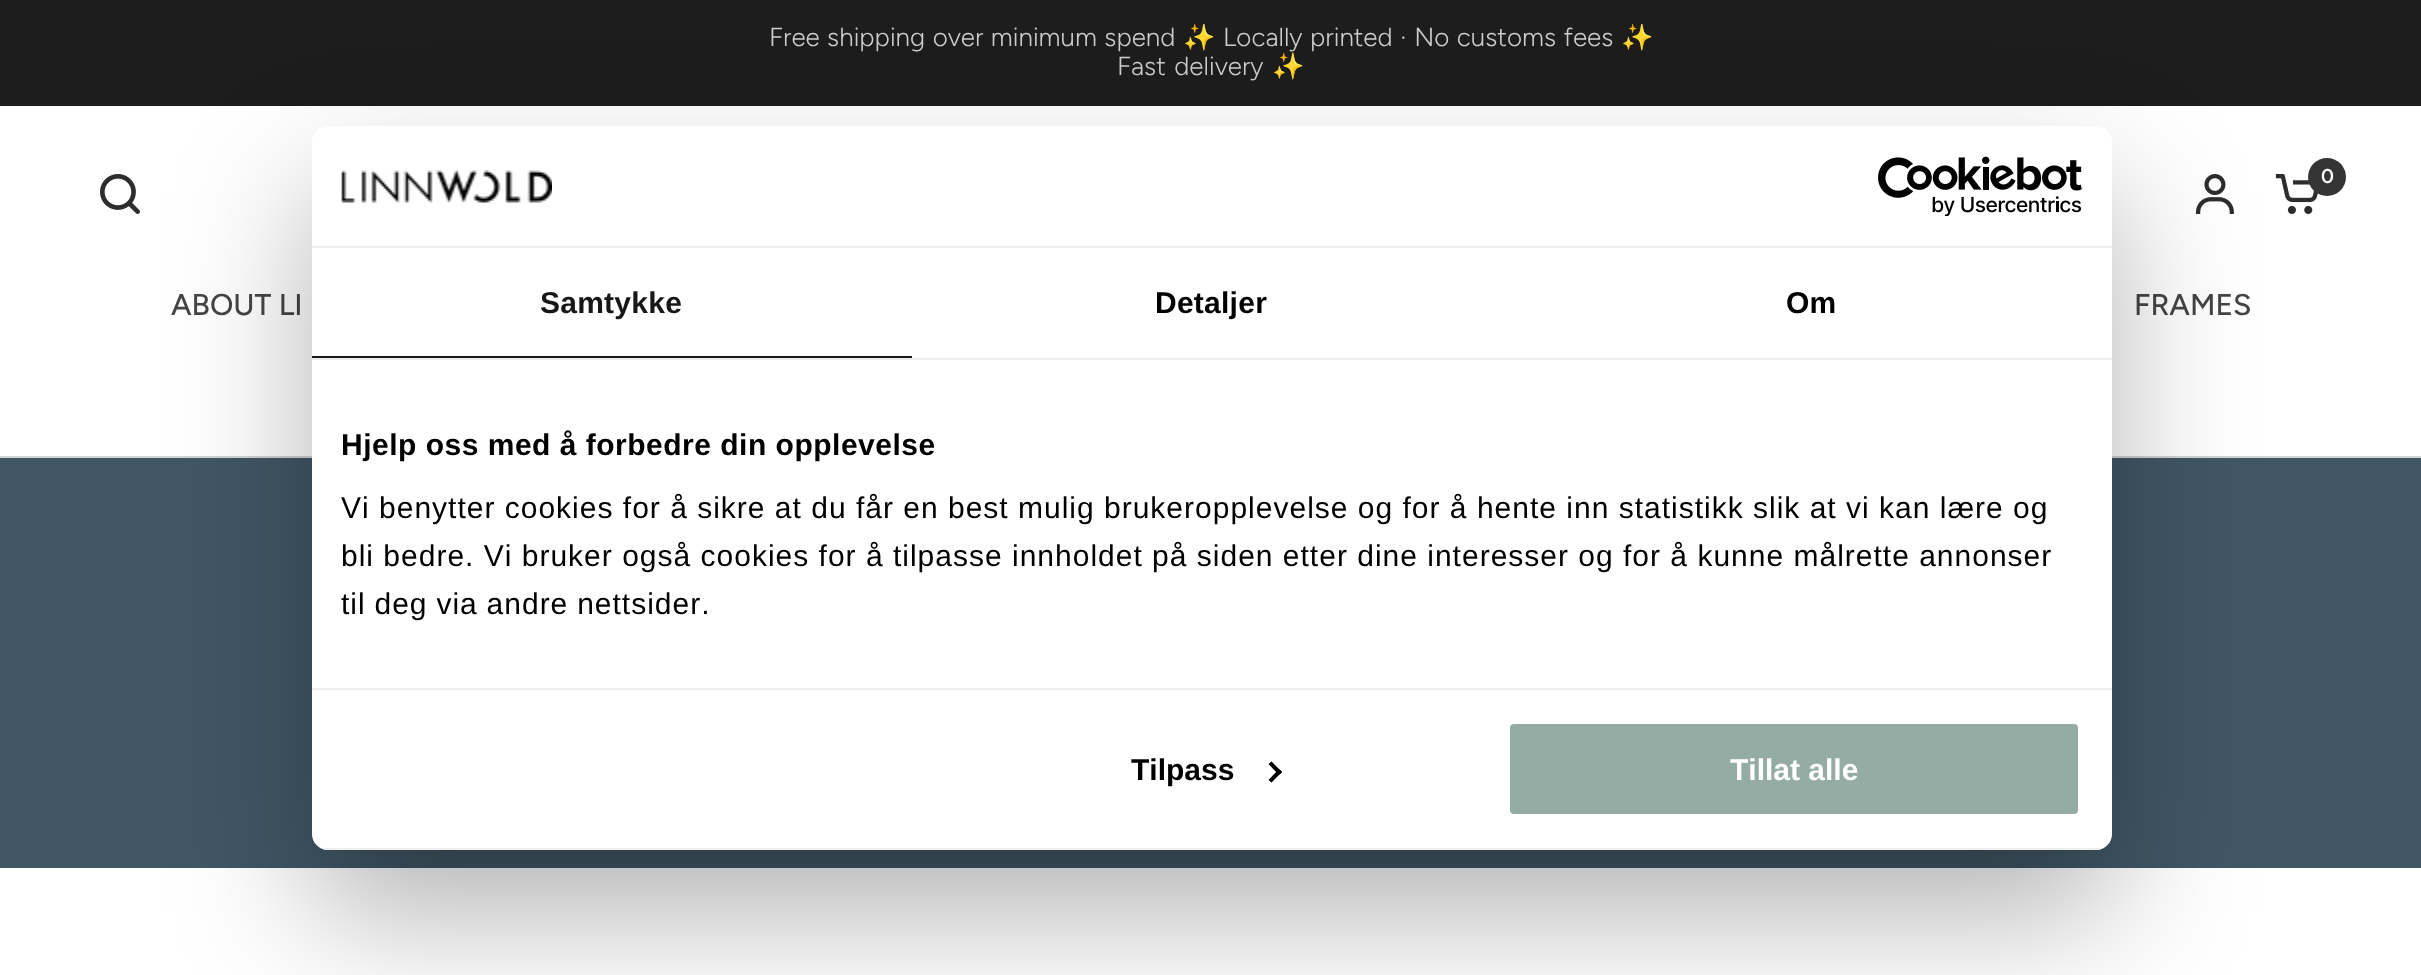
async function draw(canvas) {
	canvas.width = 2421;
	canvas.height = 975;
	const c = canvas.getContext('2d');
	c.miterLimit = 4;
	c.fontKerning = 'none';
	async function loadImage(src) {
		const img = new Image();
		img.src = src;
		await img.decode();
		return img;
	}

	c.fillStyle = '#fff';
	c.fillRect(0, 0, 2421, 975);
	c.fillStyle = '#1d1d1d';
	c.fillRect(0, 0, 2421, 106);
	c.wordSpacing = '1px';
	c.font = '300 26px Figtree';
	c.fillStyle = '#cecccc';
	c.fillText('Free shipping over minimum spend', 769, 46);
	c.save();
	c.beginPath();
	c.rect(712, 24, 1000, 58);
	c.clip();
	c.wordSpacing = '0px';
	c.font = '26px Noto Color Emoji';
	c.fillText('✨', 1183, 46);
	c.restore();
	c.fillText('Locally printed · No customs fees', 1223, 46);
	c.save();
	c.beginPath();
	c.rect(712, 24, 1000, 58);
	c.clip();
	c.wordSpacing = '0px';
	c.font = '26px Noto Color Emoji';
	c.fillText('✨', 1621, 46);
	c.restore();
	c.wordSpacing = '2px';
	c.fillText('Fast delivery', 1117, 75);
	c.wordSpacing = '0px';
	c.font = '26px Noto Color Emoji';
	c.fillText('✨', 1272, 75);
	c.drawImage(await loadImage('img1.png'), 100, 174, 40, 40);
	c.drawImage(await loadImage('img2.png'), 2196, 174, 38, 40);
	c.drawImage(await loadImage('img3.png'), 2275, 174, 43, 40);
	c.fillStyle = '#353535';
	c.beginPath();
	c.arc(2327, 177, 19, 0, 2 * Math.PI);
	c.fill();
	c.font = '600 20px Figtree';
	c.fillStyle = '#fff';
	c.fillText('0', 2321, 183);
	c.font = '500 30px Figtree';
	c.fillStyle = '#464545';
	c.fillText('ABOUT LI', 171, 315);
	c.fillText('FRAMES', 2134, 315);
	c.fillStyle = '#d3d3d3';
	c.fillRect(0, 456, 2421, 2);
	c.fillStyle = '#415766';
	c.fillRect(0, 458, 2421, 410);
	c.fillStyle = '#0000004d';
	c.filter = 'blur(68px)';
	c.beginPath();
	c.roundRect(312, 190, 1800, 724, 16);
	c.fill();
	c.filter = 'none';
	c.fillStyle = '#fff';
	c.beginPath();
	c.roundRect(312, 126, 1800, 724, 16);
	c.fill();
	c.fillStyle = '#eee';
	c.fillRect(312, 246, 1800, 2);
	c.drawImage(await loadImage('img4.png'), 341, 170, 211, 33);
	c.drawImage(await loadImage('img5.png'), 1878, 156, 204, 60);
	c.fillRect(312, 358, 1800, 2);
	c.fillStyle = '#171717';
	c.fillRect(312, 356, 600, 2);
	c.letterSpacing = '0.25px';
	c.font = 'bold 30px Liberation Sans';
	c.fillText('Samtykke', 540, 313);
	c.fillStyle = '#000';
	c.fillText('Detaljer', 1155, 313);
	c.fillText('Om', 1786, 313);
	c.fillStyle = '#eee';
	c.fillRect(312, 688, 1800, 2);
	c.letterSpacing = '0.5px';
	c.fillStyle = '#000';
	c.fillText('Hjelp oss med å forbedre din opplevelse', 341, 455);
	c.letterSpacing = '1px';
	c.font = '30px Liberation Sans';
	c.fillText('Vi benytter cookies for å sikre at du får en best mulig brukeropplevelse og for å hente inn statistikk slik at vi kan lære og', 341, 518);
	c.fillText('bli bedre. Vi bruker også cookies for å tilpasse innholdet på siden etter dine interesser og for å kunne målrette annonser', 341, 566);
	c.wordSpacing = '-0.5px';
	c.fillText('til deg via andre nettsider.', 341, 614);
	c.save();
	c.beginPath();
	c.roundRect(312, 126, 1800, 724, 16);
	c.clip();
	c.fillStyle = '#eee';
	c.fillRect(312, 848, 1800, 2);
	c.restore();
	c.letterSpacing = '0px';
	c.wordSpacing = '0px';
	c.font = 'bold 30px Liberation Sans';
	c.fillText('Tilpass', 1131, 780);
	c.beginPath();
	c.moveTo(1271.5, 761.5);
	c.lineTo(1282, 772);
	c.lineTo(1279, 775);
	c.lineTo(1268.5, 764);
	c.closePath();
	c.fill();
	c.beginPath();
	c.moveTo(1279, 769);
	c.lineTo(1282, 772);
	c.lineTo(1271.5, 782.5);
	c.lineTo(1268.5, 780);
	c.closePath();
	c.fill();
	c.fillStyle = '#95aca5';
	c.beginPath();
	c.roundRect(1508, 722, 572, 94, 6);
	c.fill();
	c.strokeStyle = '#fff';
	c.lineWidth = 4;
	c.stroke();
	c.fillStyle = '#fff';
	c.fillText('Tillat alle', 1730, 780);
}

draw(document.querySelector('canvas'));
